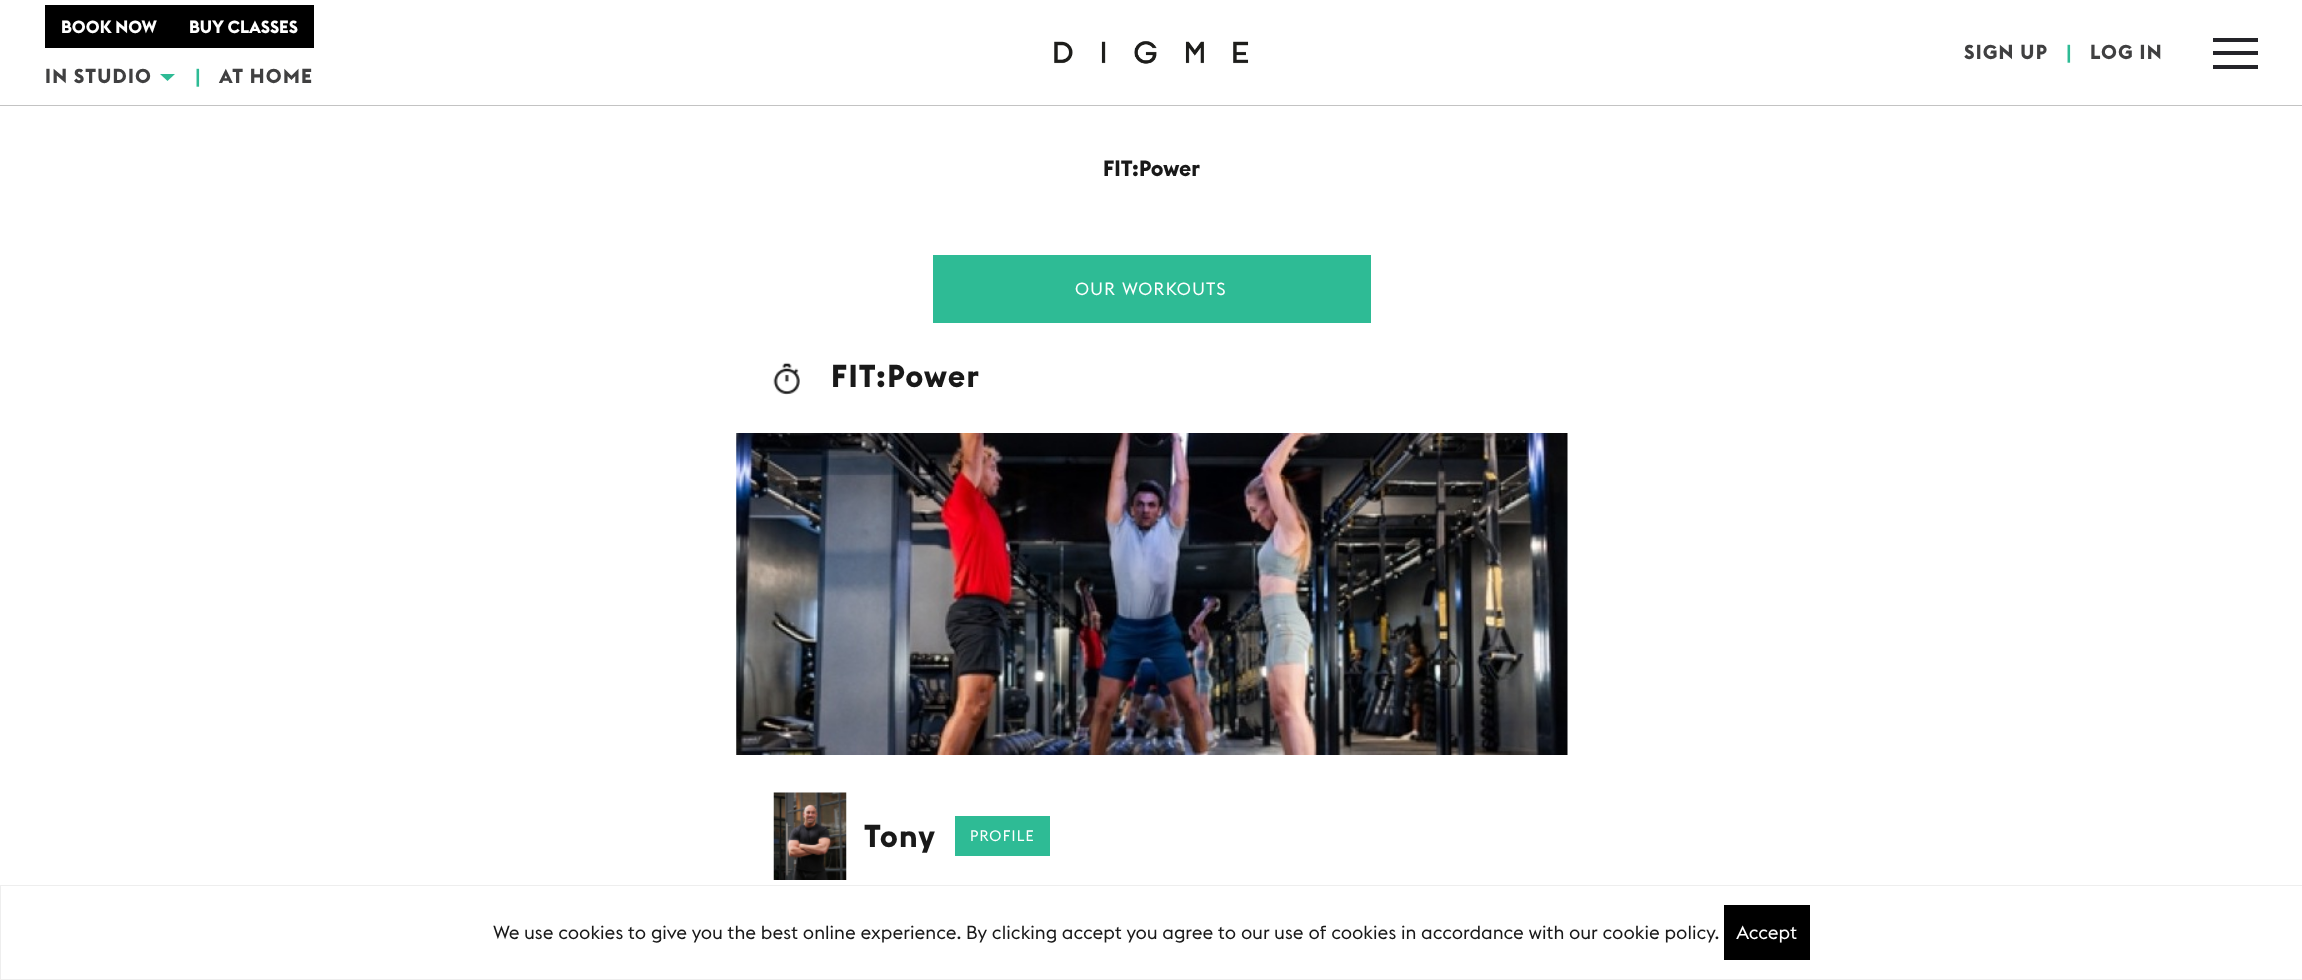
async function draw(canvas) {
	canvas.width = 2302;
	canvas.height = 980;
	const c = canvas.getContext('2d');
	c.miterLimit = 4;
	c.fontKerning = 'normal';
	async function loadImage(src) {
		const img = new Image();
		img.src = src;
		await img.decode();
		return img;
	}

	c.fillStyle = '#fff';
	c.fillRect(0, 0, 2302, 980);
	c.fillStyle = '#c3c3c3';
	c.fillRect(0, 105, 2302, 1);
	c.fillStyle = '#000';
	c.fillRect(45, 5, 269, 43);
	c.font = 'bold 17.5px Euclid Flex';
	c.fillStyle = '#fff';
	c.fillText('BOOK NOW', 61, 33);
	c.fillText('BUY CLASSES', 189, 33);
	c.letterSpacing = '1.25px';
	c.font = 'bold 20px Euclid Flex';
	c.fillStyle = '#404041';
	c.fillText('IN STUDIO', 45, 83);
	c.fillStyle = '#2ebb95';
	c.beginPath();
	c.moveTo(160, 74);
	c.lineTo(175, 74);
	c.lineTo(167.5, 81);
	c.closePath();
	c.fill();
	c.fillText('|', 195, 83);
	c.fillStyle = '#404041';
	c.fillText('AT HOME', 219, 83);
	c.drawImage(await loadImage('img1.png'), 1054, 41, 195, 23);
	c.fillText('SIGN UP', 1964, 59);
	c.fillStyle = '#2ebb95';
	c.fillText('|', 2066, 59);
	c.fillStyle = '#404041';
	c.fillText('LOG IN', 2090, 59);
	for (const [x, y, w, h, color] of [
		[2213, 38, 45, 4, '#242429'],
		[2213, 51, 45, 4, '#242429'],
		[2213, 65, 45, 4, '#242429'],
	]) {
		c.fillStyle = color;
		c.fillRect(x, y, w, h);
	}
	c.letterSpacing = '0px';
	c.font = 'bold 22px Euclid Flex';
	c.fillStyle = '#191919';
	c.fillText('FIT:Power', 1103, 176);
	c.fillStyle = '#2ebb95';
	c.fillRect(933, 255, 438, 68);
	c.letterSpacing = '1.25px';
	c.font = '17.5px Euclid Flex';
	c.fillStyle = '#fff';
	c.fillText('OUR WORKOUTS', 1075, 295);
	c.drawImage(await loadImage('img2.png'), 773, 362, 27, 33);
	c.font = 'bold 31.25px Euclid Flex';
	c.fillStyle = '#191919';
	c.fillText('FIT:Power', 831, 387);
	c.drawImage(await loadImage('img3.png'), 736, 433, 832, 322);
	c.drawImage(await loadImage('img4.png'), 773, 792, 74, 88);
	c.fillText('Tony', 864, 847);
	c.fillStyle = '#2ebb95';
	c.fillRect(955, 816, 95, 40);
	c.font = '15px Euclid Flex';
	c.fillStyle = '#fff';
	c.fillText('PROFILE', 970, 841);
	c.strokeStyle = '#eee';
	c.strokeRect(0.5, 885.5, 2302, 94);
	c.letterSpacing = '0px';
	c.font = '18.75px Euclid Flex';
	c.fillStyle = '#191919';
	c.fillText('We use cookies to give you the best online experience. By clicking accept you agree to our use of cookies in accordance with our cookie policy.', 493, 939);
	c.fillStyle = '#000';
	c.fillRect(1724, 905, 86, 55);
	c.fillStyle = '#fff';
	c.fillText('Accept', 1736, 939);
}

draw(document.querySelector('canvas'));
